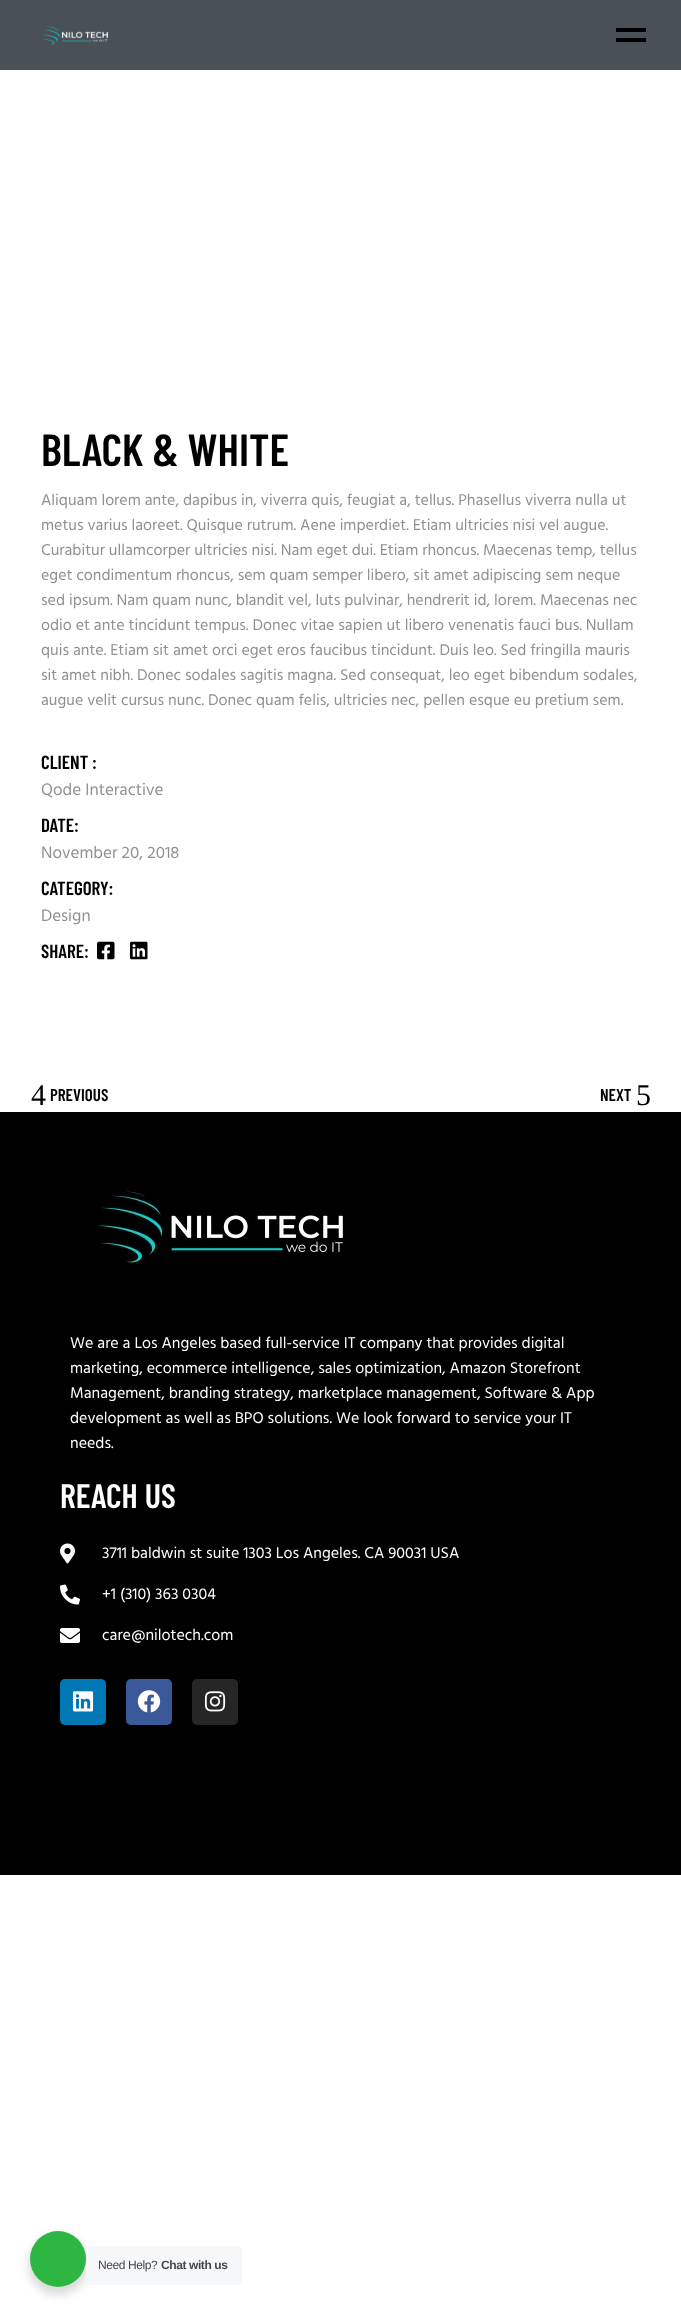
async function draw(canvas) {
	canvas.width = 681;
	canvas.height = 2317;
	const c = canvas.getContext('2d');
	c.miterLimit = 4;
	c.fontKerning = 'normal';
	async function loadImage(src) {
		const img = new Image();
		img.src = src;
		await img.decode();
		return img;
	}

	c.fillStyle = '#fff';
	c.fillRect(0, 0, 681, 2317);
	c.fillStyle = '#495157';
	c.fillRect(0, 0, 681, 70);
	c.drawImage(await loadImage('img1.png'), 42, 25, 66, 20);
	c.fillStyle = '#000';
	c.fillRect(616, 28, 30, 4);
	c.fillRect(616, 38, 30, 4);
	c.font = '600 45px Barlow Condensed';
	c.fillText('BLACK & WHITE', 41, 466);
	c.font = '16px Hind';
	c.fillStyle = '#909090';
	for (const [text, x, y] of [
		['Aliquam lorem ante, dapibus in, viverra quis, feugiat a, tellus. Phasellus viverra nulla ut', 41, 505],
		['metus varius laoreet. Quisque rutrum. Aene imperdiet. Etiam ultricies nisi vel augue.', 41, 530],
		['Curabitur ullamcorper ultricies nisi. Nam eget dui. Etiam rhoncus. Maecenas temp, tellus', 41, 555],
		['eget condimentum rhoncus, sem quam semper libero, sit amet adipiscing sem neque', 41, 580],
		['sed ipsum. Nam quam nunc, blandit vel, luts pulvinar, hendrerit id, lorem. Maecenas nec', 41, 605],
		['odio et ante tincidunt tempus. Donec vitae sapien ut libero venenatis fauci bus. Nullam', 41, 630],
		['quis ante. Etiam sit amet orci eget eros faucibus tincidunt. Duis leo. Sed fringilla mauris', 41, 655],
		['sit amet nibh. Donec sodales sagitis magna. Sed consequat, leo eget bibendum sodales,', 41, 680],
		['augue velit cursus nunc. Donec quam felis, ultricies nec, pellen esque eu pretium sem.', 41, 705],
	]) {
		c.fillText(text, x, y);
	}
	c.font = '600 19px Barlow Condensed';
	c.fillStyle = '#000';
	c.fillText('CLIENT :', 41, 769);
	c.font = '17px Hind';
	c.fillStyle = '#909090';
	c.fillText('Qode Interactive', 41, 795);
	c.font = '600 19px Barlow Condensed';
	c.fillStyle = '#000';
	c.fillText('DATE:', 41, 832);
	c.font = '17px Hind';
	c.fillStyle = '#909090';
	c.fillText('November 20, 2018', 41, 858);
	c.font = '600 19px Barlow Condensed';
	c.fillStyle = '#000';
	c.fillText('CATEGORY:', 41, 895);
	c.font = '17px Hind';
	c.fillStyle = '#909090';
	c.fillText('Design', 41, 921);
	c.font = '600 19px Barlow Condensed';
	c.fillStyle = '#000';
	c.fillText('SHARE:', 41, 958);
	c.drawImage(await loadImage('img2.png'), 97, 941, 18, 19);
	c.drawImage(await loadImage('img3.png'), 130, 941, 18, 19);
	c.font = '30px Liberation Serif';
	c.fillText('4', 31, 1105);
	c.font = '600 17px Barlow Condensed';
	c.fillText('PREVIOUS', 50, 1101);
	c.fillText('NEXT', 600, 1101);
	c.font = '30px Liberation Serif';
	c.fillText('5', 636, 1105);
	c.fillRect(0, 1112, 681, 763);
	c.drawImage(await loadImage('img4.png'), 98, 1188, 248, 76);
	c.font = '16px Hind';
	c.fillStyle = '#fff';
	for (const [text, x, y] of [
		['We are a Los Angeles based full-service IT company that provides digital', 70, 1348],
		['marketing, ecommerce intelligence, sales optimization, Amazon Storefront', 70, 1373],
		['Management, branding strategy, marketplace management, Software & App', 70, 1398],
		['development as well as BPO solutions. We look forward to service your IT', 70, 1423],
		['needs.', 70, 1448],
	]) {
		c.fillText(text, x, y);
	}
	c.font = '600 34px Barlow Condensed';
	c.fillText('REACH US', 60, 1508);
	c.drawImage(await loadImage('img5.png'), 60, 1543, 15, 21);
	c.font = '16px Hind';
	c.fillText('3711 baldwin st suite 1303 Los Angeles. CA 90031 USA', 102, 1558);
	c.drawImage(await loadImage('img6.png'), 60, 1584, 20, 21);
	c.fillText('+1 (310) 363 0304', 102, 1599);
	c.drawImage(await loadImage('img7.png'), 60, 1628, 20, 15);
	c.fillText('care@nilotech.com', 102, 1640);
	c.fillStyle = '#0077b5';
	c.beginPath();
	c.roundRect(60, 1679, 46, 46, 5);
	c.fill();
	c.drawImage(await loadImage('img8.png'), 72, 1691, 22, 21);
	c.fillStyle = '#3b5998';
	c.beginPath();
	c.roundRect(126, 1679, 46, 46, 5);
	c.fill();
	c.drawImage(await loadImage('img9.png'), 137, 1690, 24, 23);
	c.fillStyle = '#262626';
	c.beginPath();
	c.roundRect(192, 1679, 46, 46, 5);
	c.fill();
	c.drawImage(await loadImage('img10.png'), 204, 1691, 22, 21);
	c.fillStyle = '#00000024';
	c.filter = 'blur(4px)';
	c.beginPath();
	c.roundRect(28, 2235, 60, 60, 30);
	c.fill();
	c.filter = 'none';
	c.fillStyle = '#2db742';
	c.beginPath();
	c.arc(58, 2259, 28, 0, 2 * Math.PI);
	c.fill();
	c.fillStyle = '#f5f7f9';
	c.beginPath();
	c.roundRect(86, 2246, 156, 39, 4);
	c.fill();
	c.letterSpacing = '-0.4px';
	c.font = '12px Liberation Sans';
	c.fillStyle = '#43474e';
	c.fillText('Need Help?', 98, 2269);
	c.font = 'bold 12px Liberation Sans';
	c.fillText('Chat with us', 161, 2269);
}

draw(document.querySelector('canvas'));
